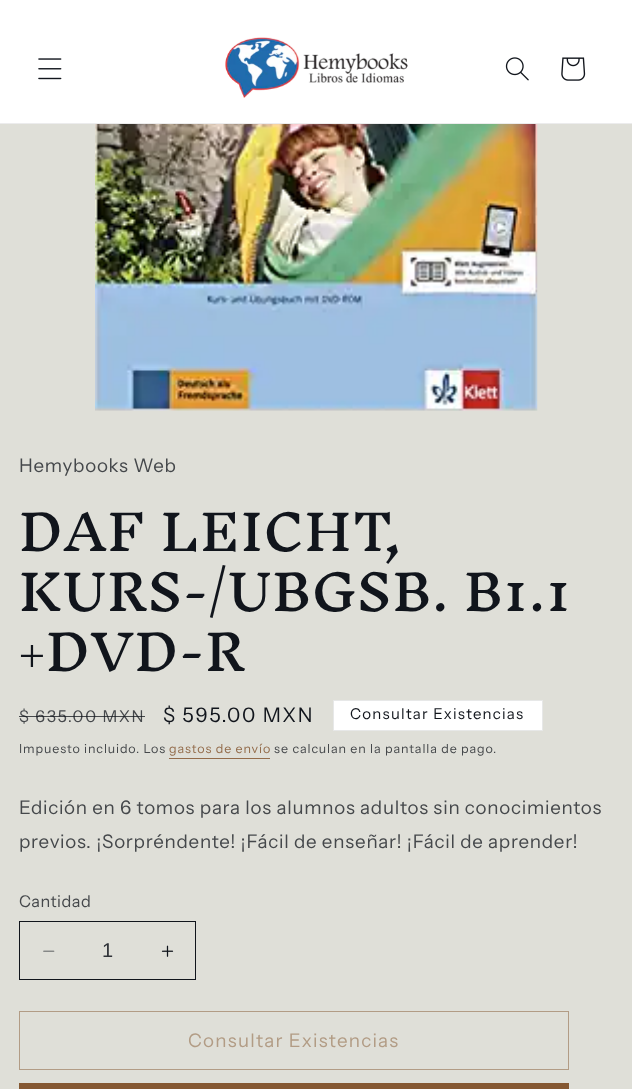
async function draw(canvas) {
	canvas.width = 632;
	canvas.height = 1089;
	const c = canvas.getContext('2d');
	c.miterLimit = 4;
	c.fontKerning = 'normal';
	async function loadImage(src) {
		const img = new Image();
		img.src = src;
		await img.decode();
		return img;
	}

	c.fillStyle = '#dfdfd8';
	c.fillRect(0, 0, 632, 1089);
	c.fillStyle = '#fff';
	c.fillRect(0, 0, 632, 123);
	c.fillStyle = '#ececed';
	c.fillRect(0, 123, 632, 1);
	c.drawImage(await loadImage('img1.png'), 38, 58, 24, 22);
	c.drawImage(await loadImage('img2.png'), 225, 37, 183, 61);
	c.drawImage(await loadImage('img3.png'), 505, 57, 24, 24);
	c.drawImage(await loadImage('img4.png'), 561, 57, 25, 24);
	c.drawImage(await loadImage('img5.png'), 95, 124, 443, 287);
	c.letterSpacing = '0.75px';
	c.font = '18.75px Instrument Sans';
	c.fillStyle = '#45484b';
	c.fillText('Hemybooks Web', 19, 472);
	c.letterSpacing = '1px';
	c.font = '500 48.75px Inknut Antiqua';
	c.fillStyle = '#11151c';
	for (const [text, x, y] of [
		['DAF LEICHT,', 19, 551],
		['KURS-/UBGSB. B1.1', 19, 611],
		['+DVD-R', 19, 671],
	]) {
		c.fillText(text, x, y);
	}
	c.letterSpacing = '1.6px';
	c.font = '16.25px Instrument Sans';
	c.fillStyle = '#45484b';
	c.fillText('$ 635.00 MXN', 19, 722);
	c.fillStyle = '#11151cbf';
	c.fillRect(19, 716, 126, 1);
	c.font = '20px Instrument Sans';
	c.fillStyle = '#11151c';
	c.fillText('$ 595.00 MXN', 163, 722);
	c.fillStyle = '#fff';
	c.beginPath();
	c.rect(333.5, 700.5, 209, 30);
	c.fill();
	c.strokeStyle = '#e7e8e8';
	c.stroke();
	c.letterSpacing = '1.25px';
	c.font = '15px Instrument Sans';
	c.fillStyle = '#11151c';
	c.fillText('Consultar Existencias', 350, 719);
	c.letterSpacing = '0.9px';
	c.font = '12.5px Instrument Sans';
	c.fillStyle = '#45484b';
	c.fillText('Impuesto incluido. Los', 19, 753);
	c.fillStyle = '#936c4b';
	c.fillText('gastos de envío', 169, 753);
	c.fillRect(169, 758, 101, 1);
	c.fillStyle = '#45484b';
	c.fillText('se calculan en la pantalla de pago.', 274, 753);
	c.letterSpacing = '0.75px';
	c.font = '18.75px Instrument Sans';
	c.fillText('Edición en 6 tomos para los alumnos adultos sin conocimientos', 19, 814);
	c.fillText('previos. ¡Sorpréndente! ¡Fácil de enseñar! ¡Fácil de aprender!', 19, 848);
	c.letterSpacing = '0.5px';
	c.font = '16.25px Instrument Sans';
	c.fillText('Cantidad', 19, 907);
	c.drawImage(await loadImage('img6.png'), 43, 950, 12, 2);
	c.drawImage(await loadImage('img7.png'), 161, 945, 13, 12);
	c.strokeStyle = '#11151c';
	c.strokeRect(19.5, 921.5, 176, 58);
	c.letterSpacing = '0px';
	c.font = '20px Liberation Sans';
	c.fillStyle = '#303338';
	c.fillText('1', 102, 957);
	c.strokeStyle = '#b29c85';
	c.strokeRect(19.5, 1011.5, 549, 58);
	c.letterSpacing = '1.25px';
	c.font = '18.75px Instrument Sans';
	c.fillStyle = '#b29c85';
	c.fillText('Consultar Existencias', 188, 1047);
	c.fillStyle = '#855832';
	c.fillRect(19, 1083, 550, 6);
}

draw(document.querySelector('canvas'));
